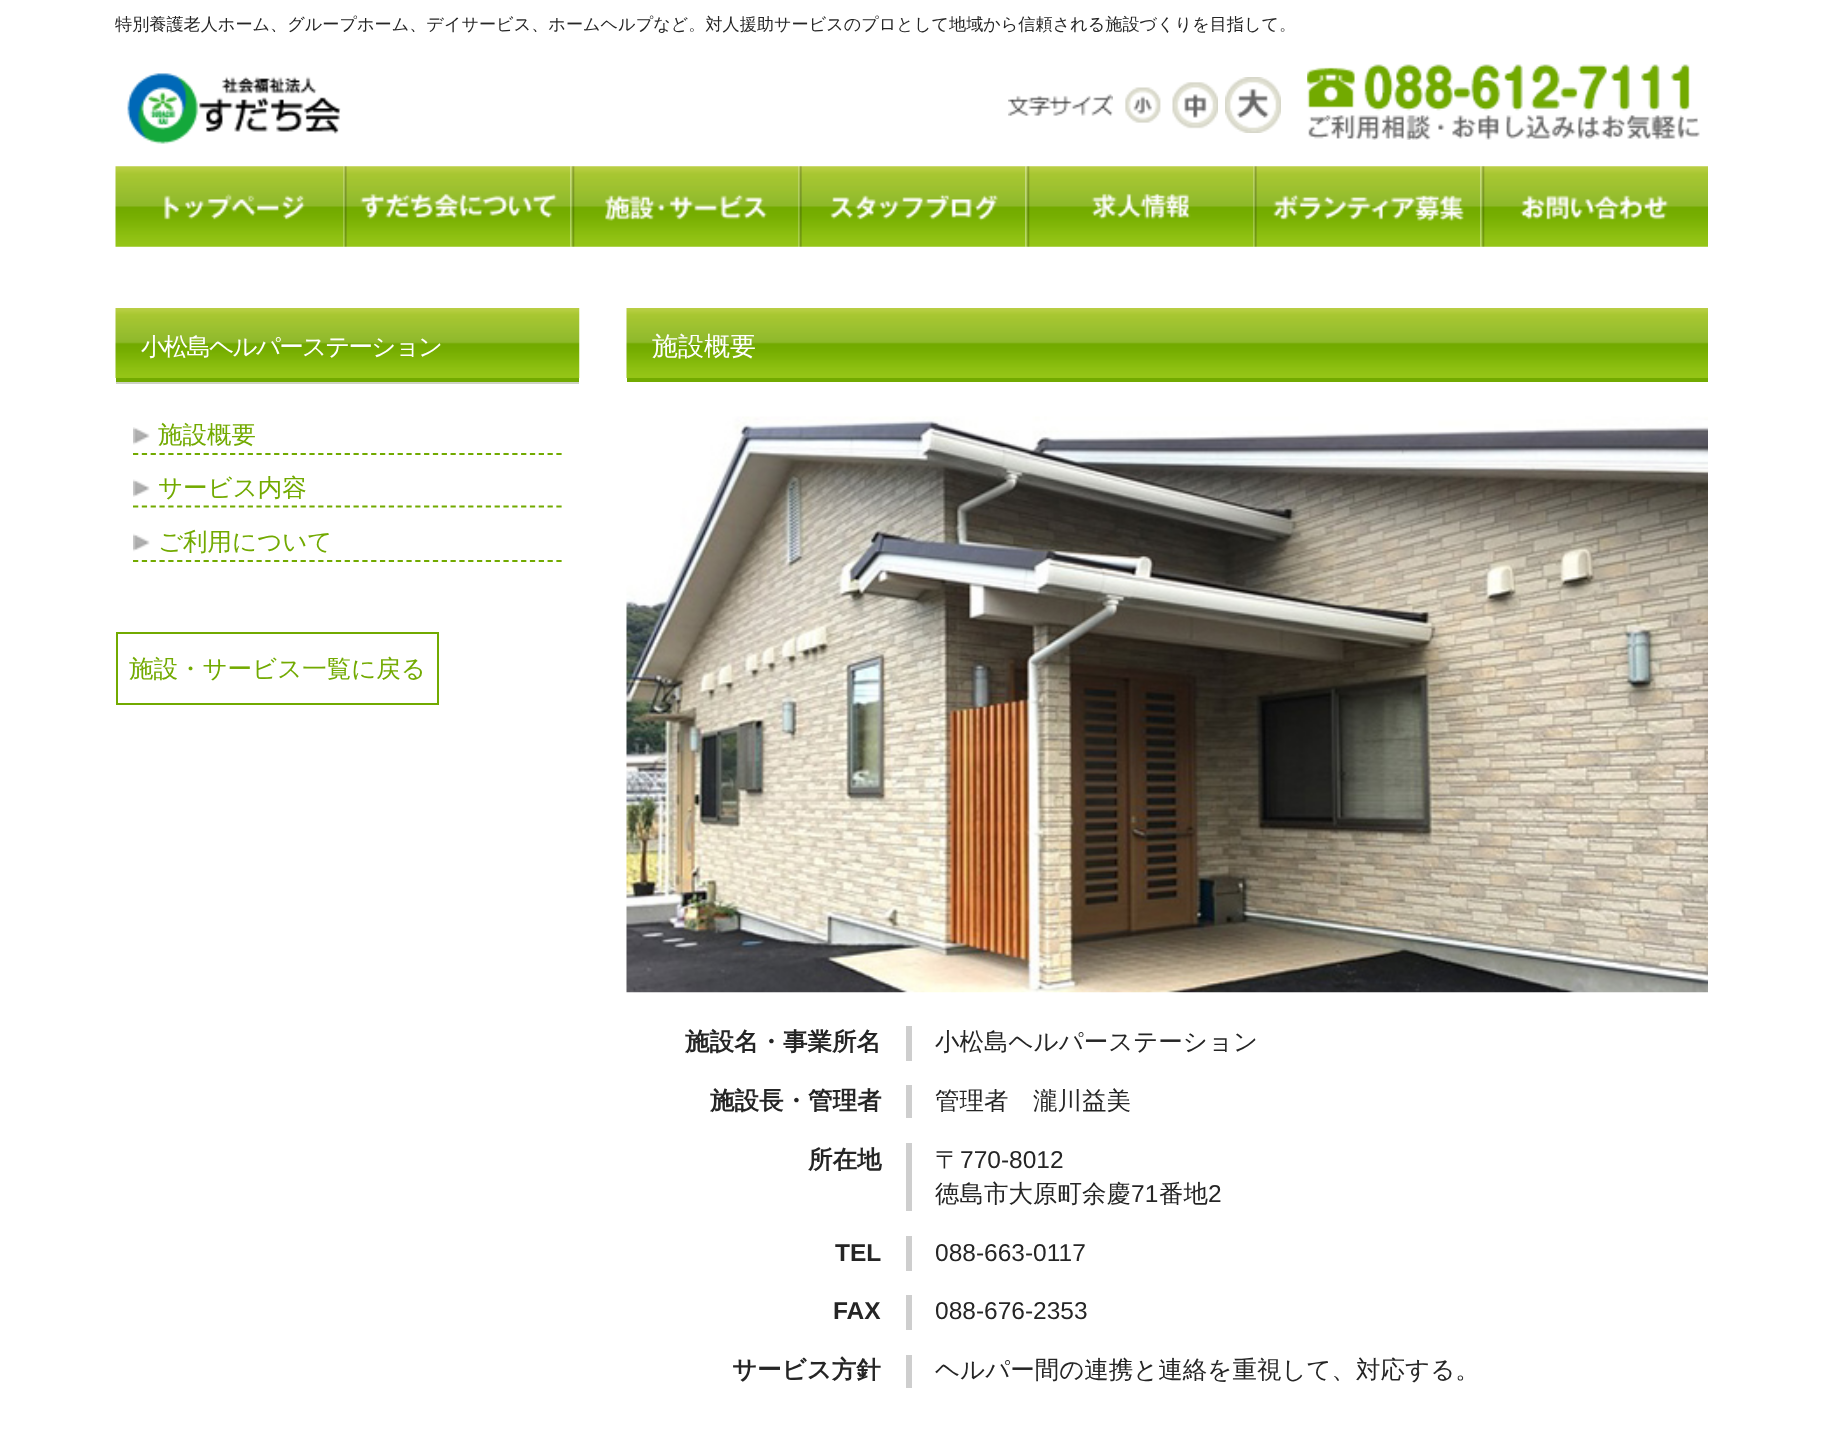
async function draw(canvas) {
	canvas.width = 1821;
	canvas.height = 1436;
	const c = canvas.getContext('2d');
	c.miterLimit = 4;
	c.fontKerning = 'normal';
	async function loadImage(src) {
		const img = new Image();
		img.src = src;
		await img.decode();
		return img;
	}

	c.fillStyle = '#fff';
	c.fillRect(0, 0, 1821, 1436);
	c.drawImage(await loadImage('img1.png'), 1307, 64, 393, 76);
	c.font = '500 17.15px WenQuanYi Zen Hei';
	c.fillStyle = '#252525';
	c.fillText('特別養護老人ホーム、グループホーム、デイサービス、ホームヘルプなど。対人援助サービスのプロとして地域から信頼される施設づくりを目指して。', 115, 30);
	c.drawImage(await loadImage('img2.png'), 127, 73, 214, 71);
	c.drawImage(await loadImage('img3.png'), 1008, 94, 105, 22);
	c.drawImage(await loadImage('img4.png'), 1125, 87, 36, 36);
	c.drawImage(await loadImage('img5.png'), 1172, 82, 46, 47);
	c.drawImage(await loadImage('img6.png'), 1225, 77, 56, 56);
	c.drawImage(await loadImage('img7.png'), 115, 166, 228, 81);
	c.drawImage(await loadImage('img8.png'), 343, 166, 228, 81);
	c.drawImage(await loadImage('img9.png'), 570, 166, 228, 81);
	c.drawImage(await loadImage('img10.png'), 798, 166, 228, 81);
	c.drawImage(await loadImage('img11.png'), 1025, 166, 228, 81);
	c.drawImage(await loadImage('img12.png'), 1253, 166, 228, 81);
	c.drawImage(await loadImage('img13.png'), 1480, 166, 228, 81);
	c.fillStyle = '#72aa00';
	c.fillRect(116, 378, 463, 4);
	c.drawImage(await loadImage('img14.png'), 115, 308, 465, 70);
	c.fillStyle = '#cdd2c4';
	c.fillRect(116, 382, 463, 2);
	c.letterSpacing = '-1.75px';
	c.font = '500 24.5px WenQuanYi Zen Hei';
	c.fillStyle = '#fff';
	c.fillText('小松島ヘルパーステーション', 141, 355);
	c.beginPath();
	c.moveTo(133, 454);
	c.lineTo(562, 454);
	c.strokeStyle = '#72aa00';
	c.lineWidth = 1.8;
	c.setLineDash([5.25, 3.57]);
	c.stroke();
	c.drawImage(await loadImage('img15.png'), 133, 427, 17, 18);
	c.letterSpacing = '0px';
	c.fillStyle = '#72aa00';
	c.fillText('施設概要', 158, 443);
	c.beginPath();
	c.moveTo(133, 506.5);
	c.lineTo(562, 506.5);
	c.stroke();
	c.drawImage(await loadImage('img16.png'), 133, 479, 17, 18);
	c.fillText('サービス内容', 158, 496);
	c.beginPath();
	c.moveTo(133, 561);
	c.lineTo(562, 561);
	c.stroke();
	c.drawImage(await loadImage('img17.png'), 133, 533, 17, 19);
	c.fillText('ご利用について', 158, 550);
	c.lineWidth = 2;
	c.setLineDash([]);
	c.strokeRect(117, 633, 321, 71);
	c.fillText('施設・サービス一覧に戻る', 129, 677);
	c.fillRect(627, 378, 1081, 4);
	c.drawImage(await loadImage('img18.png'), 626, 308, 1082, 70);
	c.font = '500 26px WenQuanYi Zen Hei';
	c.fillStyle = '#fff';
	c.fillText('施設概要', 652, 355);
	c.drawImage(await loadImage('img19.png'), 626, 416, 1082, 577);
	c.font = 'bold 24.5px WenQuanYi Zen Hei';
	c.fillStyle = '#252525';
	c.fillText('施設名・事業所名', 685, 1050);
	c.fillStyle = '#cecece';
	c.fillRect(906, 1026, 6, 35);
	c.font = '500 24.5px WenQuanYi Zen Hei';
	c.fillStyle = '#252525';
	c.fillText('小松島ヘルパーステーション', 935, 1050);
	c.font = 'bold 24.5px WenQuanYi Zen Hei';
	c.fillText('施設長・管理者', 710, 1109);
	c.fillStyle = '#cecece';
	c.fillRect(906, 1085, 6, 33);
	c.font = '500 24.5px WenQuanYi Zen Hei';
	c.fillStyle = '#252525';
	c.fillText('管理者　瀧川益美', 935, 1109);
	c.font = 'bold 24.5px WenQuanYi Zen Hei';
	c.fillText('所在地', 808, 1168);
	c.fillStyle = '#cecece';
	c.fillRect(906, 1143, 6, 68);
	c.font = '500 24.5px WenQuanYi Zen Hei';
	c.fillStyle = '#252525';
	c.fillText('〒', 935, 1168);
	c.font = '24.5px Liberation Sans';
	c.fillText('770-8012', 960, 1168);
	c.font = '500 24.5px WenQuanYi Zen Hei';
	c.fillText('徳島市大原町余慶', 935, 1202);
	c.font = '24.5px Liberation Sans';
	c.fillText('71', 1131, 1202);
	c.font = '500 24.5px WenQuanYi Zen Hei';
	c.fillText('番地', 1159, 1202);
	c.font = '24.5px Liberation Sans';
	c.fillText('2', 1208, 1202);
	c.font = 'bold 24.5px Liberation Sans';
	c.fillText('TEL', 835, 1261);
	c.fillStyle = '#cecece';
	c.fillRect(906, 1236, 6, 35);
	c.font = '24.5px Liberation Sans';
	c.fillStyle = '#252525';
	c.fillText('088-663-0117', 935, 1261);
	c.font = 'bold 24.5px Liberation Sans';
	c.fillText('FAX', 833, 1319);
	c.fillStyle = '#cecece';
	c.fillRect(906, 1295, 6, 35);
	c.font = '24.5px Liberation Sans';
	c.fillStyle = '#252525';
	c.fillText('088-676-2353', 935, 1319);
	c.font = 'bold 24.5px WenQuanYi Zen Hei';
	c.fillText('サービス方針', 732, 1378);
	c.fillStyle = '#cecece';
	c.fillRect(906, 1355, 6, 33);
	c.font = '500 24.5px WenQuanYi Zen Hei';
	c.fillStyle = '#252525';
	c.fillText('ヘルパー間の連携と連絡を重視して、対応する。', 935, 1378);
}

draw(document.querySelector('canvas'));
